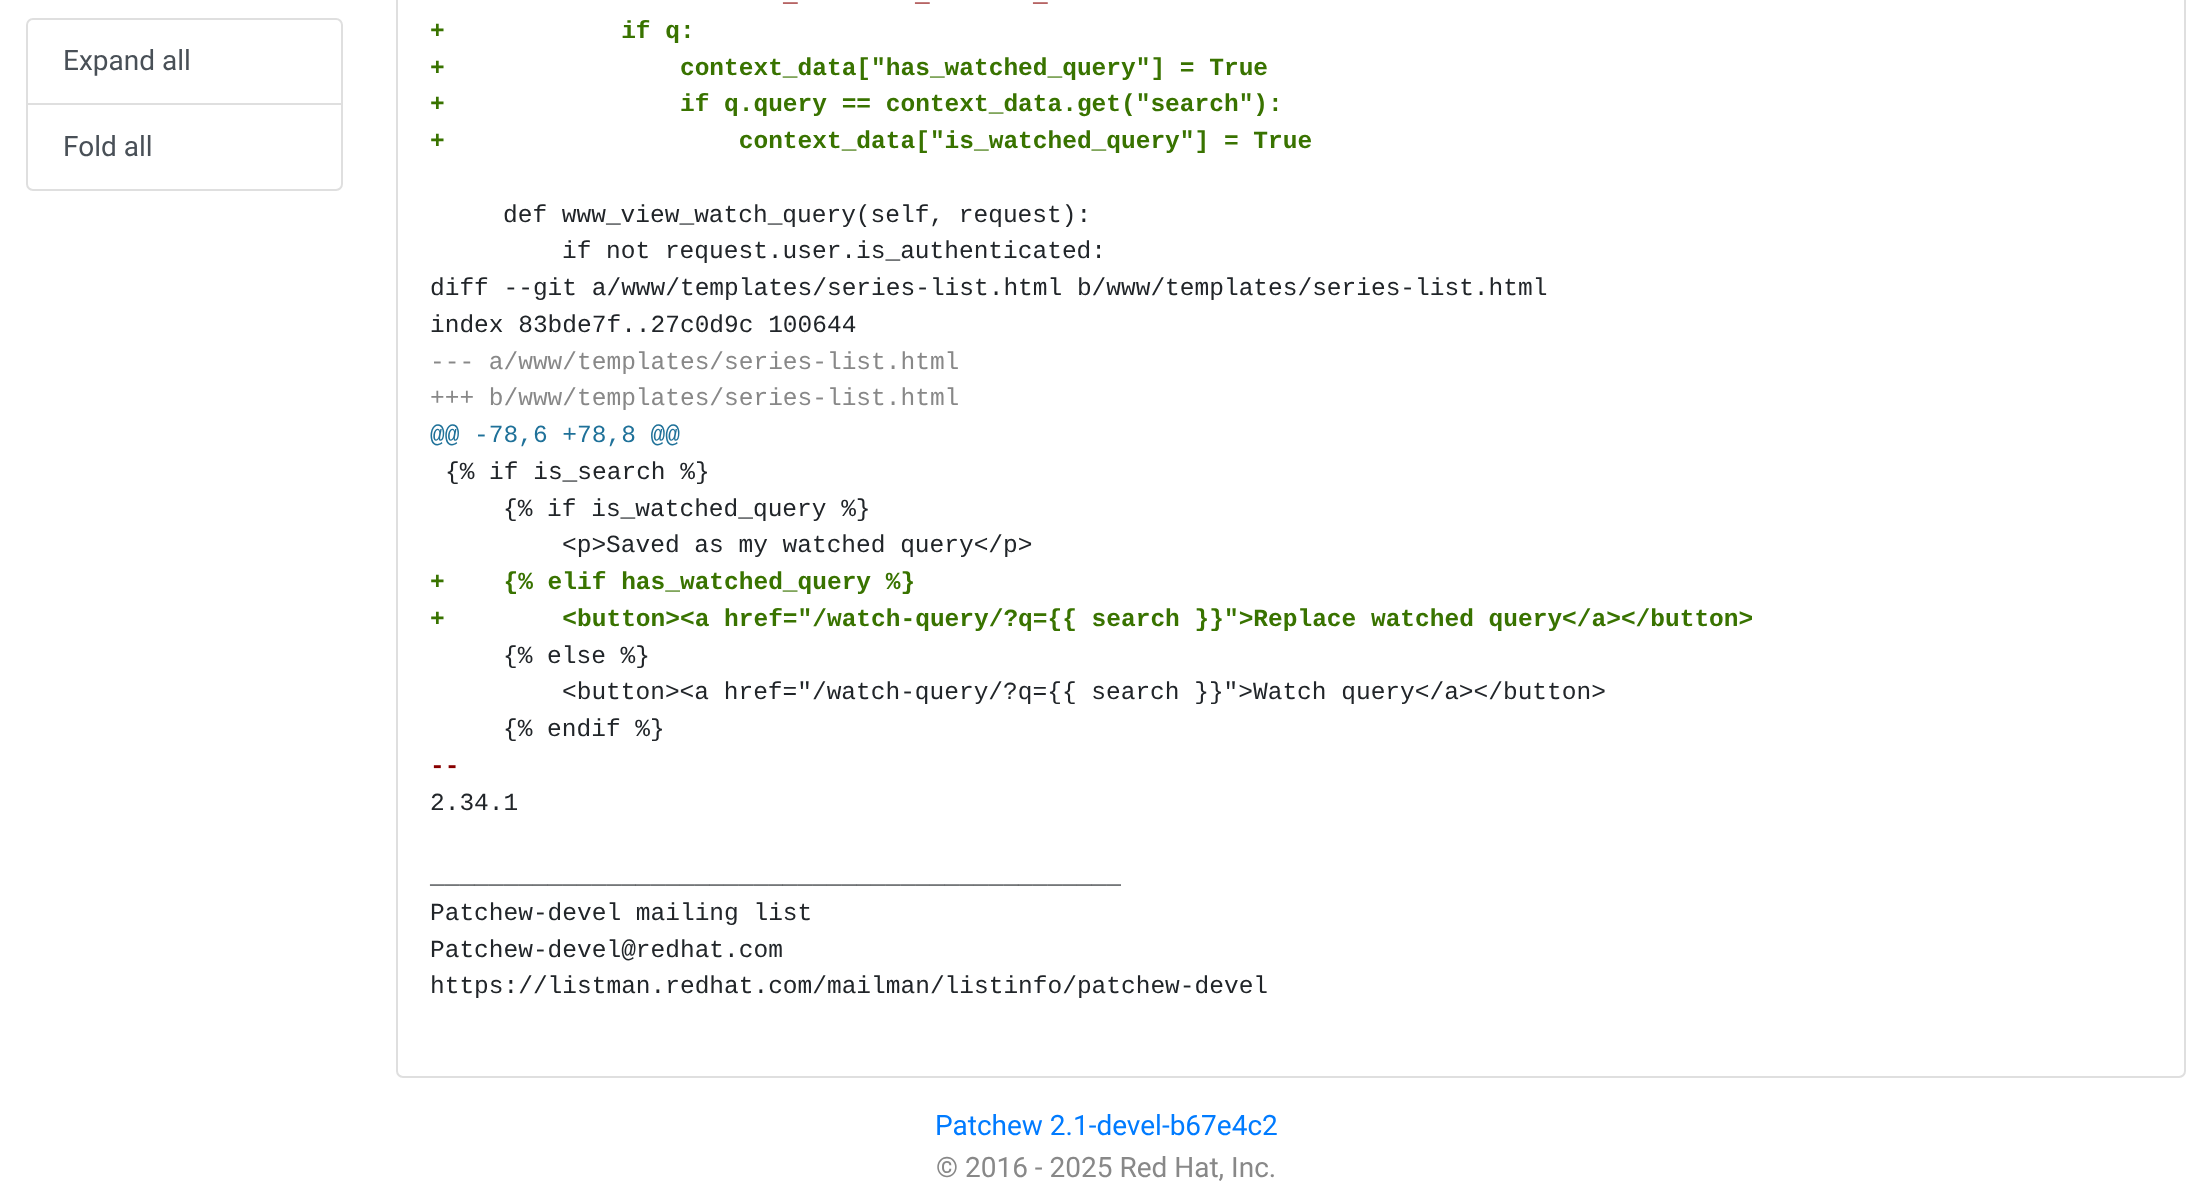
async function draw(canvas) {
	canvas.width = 2212;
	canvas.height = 1190;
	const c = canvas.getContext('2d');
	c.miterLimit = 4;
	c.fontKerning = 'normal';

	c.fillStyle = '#fff';
	c.fillRect(0, 0, 2212, 1190);
	c.beginPath();
	c.roundRect(27, 19, 315, 85, [6, 6, 0, 0]);
	c.strokeStyle = '#dfdfdf';
	c.lineWidth = 2;
	c.stroke();
	c.font = '28px Roboto';
	c.fillStyle = '#495057';
	c.fillText('Expand all', 63, 70);
	c.fillStyle = '#fff';
	c.beginPath();
	c.roundRect(27, 104, 315, 86, [0, 0, 6, 6]);
	c.fill();
	c.stroke();
	c.fillStyle = '#495057';
	c.fillText('Fold all', 63, 156);
	c.beginPath();
	c.roundRect(397, -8, 1788, 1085, 6);
	c.stroke();
	c.font = 'bold 24.5px Liberation Mono';
	c.fillStyle = '#800';
	for (const [text, x, y] of [
		['_', 783, 1],
		['_', 915, 1],
		['_', 1033, 1],
	]) {
		c.fillText(text, x, y);
	}
	c.fillStyle = '#397300';
	for (const [text, x, y] of [
		['+            if q:', 430, 38],
		['+                context_data["has_watched_query"] = True', 430, 75],
		['+                if q.query == context_data.get("search"):', 430, 111],
		['+                    context_data["is_watched_query"] = True', 430, 148],
	]) {
		c.fillText(text, x, y);
	}
	c.font = '24.5px Liberation Mono';
	c.fillStyle = '#212529';
	for (const [text, x, y] of [
		['def www_view_watch_query(self, request):', 503, 222],
		['if not request.user.is_authenticated:', 562, 258],
		['diff --git a/www/templates/series-list.html b/www/templates/series-list.html', 430, 295],
		['index 83bde7f..27c0d9c 100644', 430, 332],
	]) {
		c.fillText(text, x, y);
	}
	c.fillStyle = '#888';
	c.fillText('--- a/www/templates/series-list.html', 430, 369);
	c.fillText('+++ b/www/templates/series-list.html', 430, 405);
	c.fillStyle = '#1f7199';
	c.fillText('@@ -78,6 +78,8 @@', 430, 442);
	c.fillStyle = '#212529';
	for (const [text, x, y] of [
		['{% if is_search %}', 445, 479],
		['{% if is_watched_query %}', 503, 516],
		['<p>Saved as my watched query<\/p>', 562, 552],
	]) {
		c.fillText(text, x, y);
	}
	c.font = 'bold 24.5px Liberation Mono';
	c.fillStyle = '#397300';
	c.fillText('+    {% elif has_watched_query %}', 430, 589);
	c.fillText('+        <button><a href="/watch-query/?q={{ search }}">Replace watched query<\/a><\/button>', 430, 626);
	c.font = '24.5px Liberation Mono';
	c.fillStyle = '#212529';
	for (const [text, x, y] of [
		['{% else %}', 503, 663],
		['<button><a href="/watch-query/?q={{ search }}">Watch query<\/a><\/button>', 562, 699],
		['{% endif %}', 503, 736],
	]) {
		c.fillText(text, x, y);
	}
	c.font = 'bold 24.5px Liberation Mono';
	c.fillStyle = '#800';
	c.fillText('--', 430, 773);
	c.font = '24.5px Liberation Mono';
	c.fillStyle = '#212529';
	for (const [text, x, y] of [
		['2.34.1', 430, 810],
		['_______________________________________________', 430, 883],
		['Patchew-devel mailing list', 430, 920],
		['Patchew-devel@redhat.com', 430, 957],
		['https://listman.redhat.com/mailman/listinfo/patchew-devel', 430, 993],
	]) {
		c.fillText(text, x, y);
	}
	c.font = '28px Roboto';
	c.fillStyle = '#007bff';
	c.fillText('Patchew 2.1-devel-b67e4c2', 935, 1135);
	c.fillStyle = '#888';
	c.fillText('© 2016 - 2025 Red Hat, Inc.', 936, 1177);
}

draw(document.querySelector('canvas'));
